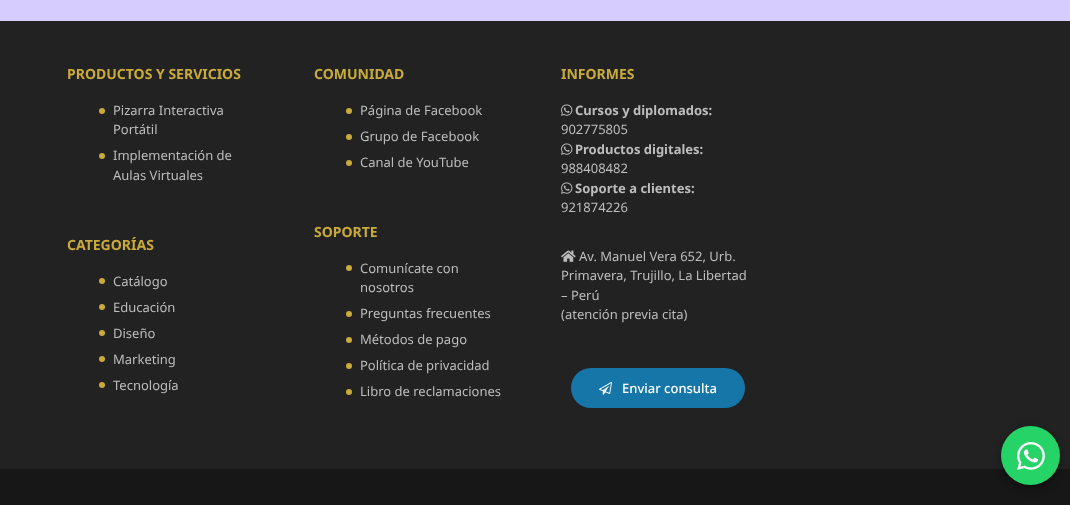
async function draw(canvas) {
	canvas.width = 1070;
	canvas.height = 505;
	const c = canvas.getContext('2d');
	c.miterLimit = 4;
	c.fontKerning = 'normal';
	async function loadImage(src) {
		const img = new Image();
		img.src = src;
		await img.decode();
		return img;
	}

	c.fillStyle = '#fff';
	c.fillRect(0, 0, 1070, 505);
	c.drawImage(await loadImage('img1.png'), 0, 0, 1070, 21);
	c.fillStyle = '#222';
	c.fillRect(0, 21, 1070, 448);
	c.font = 'bold 14px Noto Sans';
	c.fillStyle = '#c9aa3a';
	c.fillText('PRODUCTOS Y SERVICIOS', 67, 79);
	c.beginPath();
	c.arc(102, 111, 3, 0, 2 * Math.PI);
	c.fill();
	c.font = '13px Noto Sans';
	c.fillStyle = '#bdbdbd';
	c.fillText('Pizarra Interactiva', 113, 115);
	c.fillText('Portátil', 113, 134);
	c.fillStyle = '#c9aa3a';
	c.beginPath();
	c.arc(102, 156, 3, 0, 2 * Math.PI);
	c.fill();
	c.fillStyle = '#bdbdbd';
	c.fillText('Implementación de', 113, 160);
	c.fillText('Aulas Virtuales', 113, 180);
	c.font = 'bold 14px Noto Sans';
	c.fillStyle = '#c9aa3a';
	c.fillText('CATEGORÍAS', 67, 250);
	c.beginPath();
	c.arc(102, 281, 3, 0, 2 * Math.PI);
	c.fill();
	c.font = '13px Noto Sans';
	c.fillStyle = '#bdbdbd';
	c.fillText('Catálogo', 113, 286);
	c.fillStyle = '#c9aa3a';
	c.beginPath();
	c.arc(102, 307, 3, 0, 2 * Math.PI);
	c.fill();
	c.fillStyle = '#bdbdbd';
	c.fillText('Educación', 113, 312);
	c.fillStyle = '#c9aa3a';
	c.beginPath();
	c.arc(102, 333, 3, 0, 2 * Math.PI);
	c.fill();
	c.fillStyle = '#bdbdbd';
	c.fillText('Diseño', 113, 338);
	c.fillStyle = '#c9aa3a';
	c.beginPath();
	c.arc(102, 359, 3, 0, 2 * Math.PI);
	c.fill();
	c.fillStyle = '#bdbdbd';
	c.fillText('Marketing', 113, 364);
	c.fillStyle = '#c9aa3a';
	c.beginPath();
	c.arc(102, 385, 3, 0, 2 * Math.PI);
	c.fill();
	c.fillStyle = '#bdbdbd';
	c.fillText('Tecnología', 113, 390);
	c.font = 'bold 14px Noto Sans';
	c.fillStyle = '#c9aa3a';
	c.fillText('COMUNIDAD', 314, 79);
	c.beginPath();
	c.arc(349, 111, 3, 0, 2 * Math.PI);
	c.fill();
	c.font = '13px Noto Sans';
	c.fillStyle = '#bdbdbd';
	c.fillText('Página de Facebook', 360, 115);
	c.fillStyle = '#c9aa3a';
	c.beginPath();
	c.arc(349, 137, 3, 0, 2 * Math.PI);
	c.fill();
	c.fillStyle = '#bdbdbd';
	c.fillText('Grupo de Facebook', 360, 141);
	c.fillStyle = '#c9aa3a';
	c.beginPath();
	c.arc(349, 163, 3, 0, 2 * Math.PI);
	c.fill();
	c.fillStyle = '#bdbdbd';
	c.fillText('Canal de YouTube', 360, 167);
	c.font = 'bold 14px Noto Sans';
	c.fillStyle = '#c9aa3a';
	c.fillText('SOPORTE', 314, 237);
	c.beginPath();
	c.arc(349, 268, 3, 0, 2 * Math.PI);
	c.fill();
	c.font = '13px Noto Sans';
	c.fillStyle = '#bdbdbd';
	c.fillText('Comunícate con', 360, 273);
	c.fillText('nosotros', 360, 292);
	c.fillStyle = '#c9aa3a';
	c.beginPath();
	c.arc(349, 314, 3, 0, 2 * Math.PI);
	c.fill();
	c.fillStyle = '#bdbdbd';
	c.fillText('Preguntas frecuentes', 360, 318);
	c.fillStyle = '#c9aa3a';
	c.beginPath();
	c.arc(349, 340, 3, 0, 2 * Math.PI);
	c.fill();
	c.fillStyle = '#bdbdbd';
	c.fillText('Métodos de pago', 360, 344);
	c.fillStyle = '#c9aa3a';
	c.beginPath();
	c.arc(349, 366, 3, 0, 2 * Math.PI);
	c.fill();
	c.fillStyle = '#bdbdbd';
	c.fillText('Política de privacidad', 360, 370);
	c.fillStyle = '#c9aa3a';
	c.beginPath();
	c.arc(349, 392, 3, 0, 2 * Math.PI);
	c.fill();
	c.fillStyle = '#bdbdbd';
	c.fillText('Libro de reclamaciones', 360, 396);
	c.font = 'bold 14px Noto Sans';
	c.fillStyle = '#c9aa3a';
	c.fillText('INFORMES', 561, 79);
	c.drawImage(await loadImage('img2.png'), 561, 104, 12, 12);
	c.font = 'bold 13px Noto Sans';
	c.fillStyle = '#bdbdbd';
	c.fillText('Cursos y diplomados:', 575, 115);
	c.font = '13px Noto Sans';
	c.fillText('902775805', 561, 134);
	c.drawImage(await loadImage('img2.png'), 561, 143, 12, 12);
	c.font = 'bold 13px Noto Sans';
	c.fillText('Productos digitales:', 575, 154);
	c.font = '13px Noto Sans';
	c.fillText('988408482', 561, 173);
	c.drawImage(await loadImage('img2.png'), 561, 182, 12, 12);
	c.font = 'bold 13px Noto Sans';
	c.fillText('Soporte a clientes:', 575, 193);
	c.font = '13px Noto Sans';
	c.fillText('921874226', 561, 212);
	c.drawImage(await loadImage('img3.png'), 561, 250, 15, 12);
	for (const [text, x, y] of [
		['Av. Manuel Vera 652, Urb.', 579, 261],
		['Primavera, Trujillo, La Libertad', 561, 280],
		['– Perú', 561, 300],
		['(atención previa cita)', 561, 319],
	]) {
		c.fillText(text, x, y);
	}
	c.fillStyle = '#1776a8';
	c.beginPath();
	c.roundRect(571, 368, 174, 40, 20);
	c.fill();
	c.drawImage(await loadImage('img4.png'), 599, 381, 13, 14);
	c.font = '500 13px Noto Sans';
	c.fillStyle = '#fff';
	c.fillText('Enviar consulta', 622, 393);
	c.fillStyle = '#171717';
	c.fillRect(0, 469, 1070, 36);
	c.fillStyle = '#0000004d';
	c.filter = 'blur(4px)';
	c.beginPath();
	c.roundRect(1001, 430, 59, 59, 29.5);
	c.fill();
	c.filter = 'none';
	c.fillStyle = '#25d366';
	c.beginPath();
	c.arc(1030.5, 455.5, 29.5, 0, 2 * Math.PI);
	c.fill();
	c.drawImage(await loadImage('img5.png'), 1017, 442, 28, 28);
}

draw(document.querySelector('canvas'));
